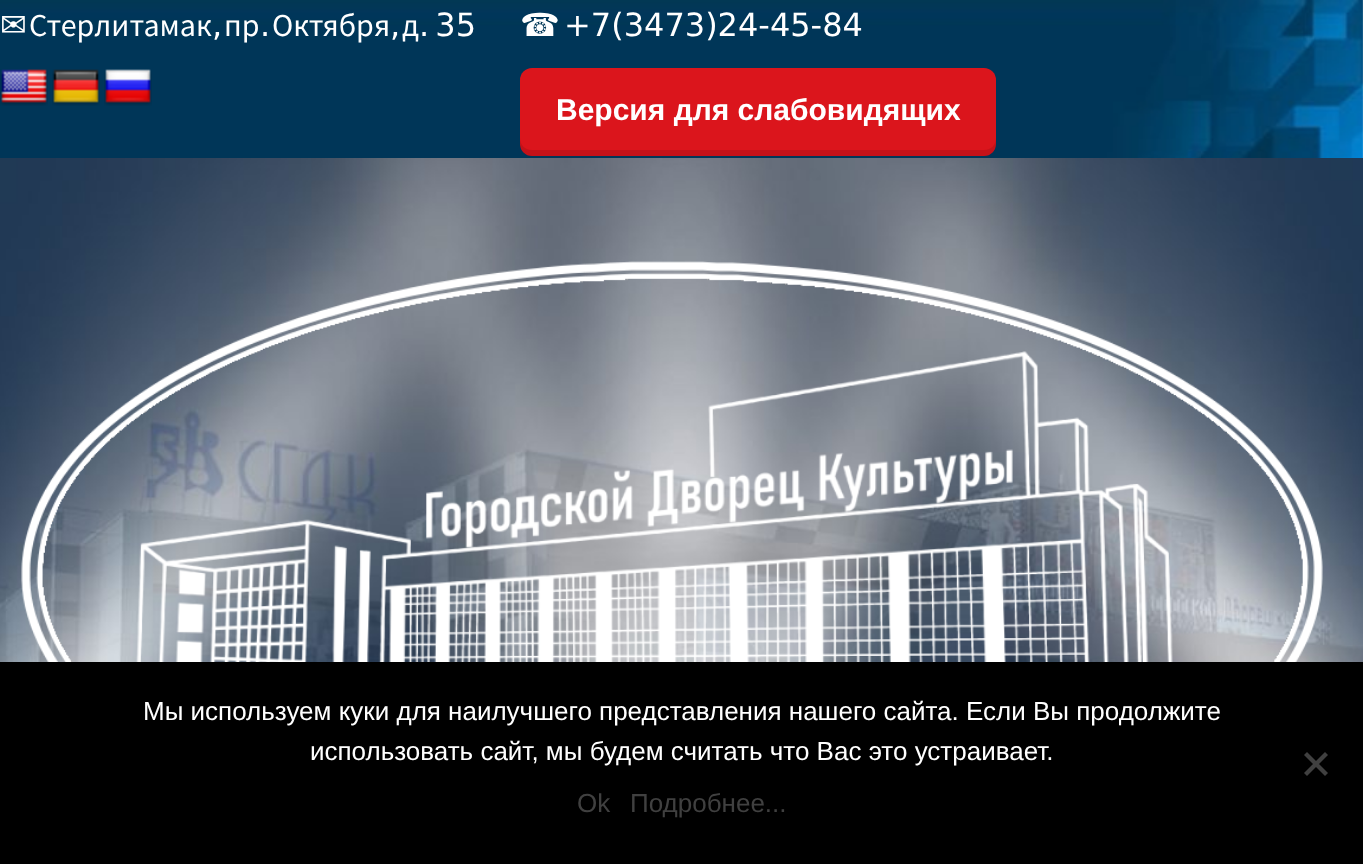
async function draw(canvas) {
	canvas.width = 1363;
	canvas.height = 864;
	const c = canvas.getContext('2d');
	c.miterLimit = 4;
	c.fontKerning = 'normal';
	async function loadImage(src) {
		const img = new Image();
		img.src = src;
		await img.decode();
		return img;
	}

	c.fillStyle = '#fff';
	c.fillRect(0, 0, 1363, 864);
	c.drawImage(await loadImage('img1.png'), 0, 0, 1363, 158);
	c.font = '32px DejaVu Sans';
	c.fillText('✉', 0, 36);
	c.font = '32px Source Sans Pro';
	c.fillText('Стерлитамак', 29, 36);
	c.font = '32px DejaVu Sans';
	c.fillText(',', 212, 36);
	c.font = '32px Source Sans Pro';
	c.fillText('пр', 224, 36);
	c.font = '32px DejaVu Sans';
	c.fillText('.', 260, 36);
	c.font = '32px Source Sans Pro';
	c.fillText('Октября', 272, 36);
	c.font = '32px DejaVu Sans';
	c.fillText(',', 390, 36);
	c.font = '32px Source Sans Pro';
	c.fillText('д', 402, 36);
	c.wordSpacing = '-4px';
	c.font = '32px DejaVu Sans';
	c.fillText('. 35', 419, 36);
	c.wordSpacing = '-6px';
	c.fillText('☎ +7(3473)24-45-84', 520, 36);
	c.drawImage(await loadImage('img2.png'), 0, 69, 48, 37);
	c.drawImage(await loadImage('img3.png'), 52, 69, 48, 37);
	c.drawImage(await loadImage('img4.png'), 104, 69, 48, 37);
	c.fillStyle = '#db151c';
	c.beginPath();
	c.roundRect(520, 68, 476, 88, 12);
	c.fill();
	c.fillStyle = '#0000001a';
	c.beginPath();
	c.moveTo(520, 138);
	c.lineTo(520, 144);
	c.bezierCurveTo(520, 151, 525, 156, 532, 156);
	c.lineTo(984, 156);
	c.bezierCurveTo(991, 156, 996, 151, 996, 144);
	c.lineTo(996, 138);
	c.bezierCurveTo(996, 145, 991, 150, 984, 150);
	c.lineTo(532, 150);
	c.bezierCurveTo(525, 150, 520, 145, 520, 138);
	c.closePath();
	c.fill();
	c.wordSpacing = '0px';
	c.font = 'bold 30px Liberation Sans';
	c.fillStyle = '#fff';
	c.fillText('Версия для слабовидящих', 556, 120);
	c.drawImage(await loadImage('img5.png'), 0, 158, 1363, 504);
	c.drawImage(await loadImage('img6.png'), 21, 261, 1302, 401);
	c.fillStyle = '#000';
	c.fillRect(0, 662, 1363, 202);
	c.font = '26px Liberation Sans';
	c.fillStyle = '#fff';
	c.fillText('Мы используем куки для наилучшего представления нашего сайта. Если Вы продолжите', 143, 720);
	c.fillText('использовать сайт, мы будем считать что Вас это устраивает.', 310, 760);
	c.fillStyle = '#404040';
	c.beginPath();
	c.moveTo(1325, 752);
	c.lineTo(1328, 755);
	c.lineTo(1307, 776);
	c.lineTo(1304, 773);
	c.closePath();
	c.fill();
	c.beginPath();
	c.moveTo(1304, 755);
	c.lineTo(1307, 752);
	c.lineTo(1328, 773);
	c.lineTo(1325, 776);
	c.closePath();
	c.fill();
	c.fillText('Ok', 577, 812);
	c.fillText('Подробнее...', 630, 812);
}

draw(document.querySelector('canvas'));
